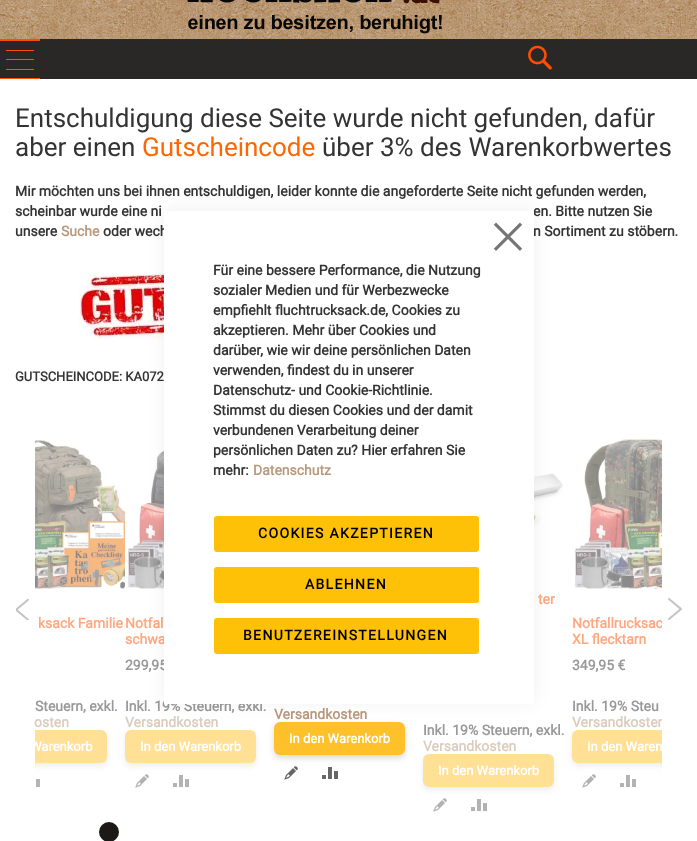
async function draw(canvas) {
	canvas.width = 697;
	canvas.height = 841;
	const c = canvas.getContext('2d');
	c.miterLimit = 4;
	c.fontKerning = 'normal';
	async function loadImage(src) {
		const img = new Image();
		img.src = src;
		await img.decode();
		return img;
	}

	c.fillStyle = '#fff';
	c.fillRect(0, 0, 697, 841);
	c.drawImage(await loadImage('img1.png'), 0, 0, 697, 39);
	c.drawImage(await loadImage('img2.png'), 187, 0, 255, 34);
	for (const [x, y, w, h, color] of [
		[0, 39, 697, 40, '#292826'],
		[0, 39, 40, 2, '#ff4e00'],
		[0, 78, 40, 1, '#ff4e00'],
		[6, 50, 28, 1, '#ff4e00'],
		[6, 59, 28, 1, '#ff4e00'],
		[6, 69, 28, 1, '#ff4e00'],
	]) {
		c.fillStyle = color;
		c.fillRect(x, y, w, h);
	}
	c.drawImage(await loadImage('img3.png'), 528, 45, 24, 25);
	c.font = '26px Roboto';
	c.fillStyle = '#333';
	c.fillText('Entschuldigung diese Seite wurde nicht gefunden, dafür', 15, 127);
	c.fillText('aber einen', 15, 156);
	c.fillStyle = '#f60';
	c.fillText('Gutscheincode', 142, 156);
	c.fillStyle = '#333';
	c.fillText('über 3% des Warenkorbwertes', 322, 156);
	c.font = 'bold 14px Roboto';
	for (const [text, x, y] of [
		['Mir möchten uns bei ihnen entschuldigen, leider konnte die angeforderte Seite nicht gefunden werden,', 15, 196],
		['scheinbar wurde eine ni', 15, 216],
		['en. Bitte nutzen Sie', 533, 216],
		['unsere', 15, 236],
	]) {
		c.fillText(text, x, y);
	}
	c.fillStyle = '#b7987c';
	c.fillText('Suche', 61, 236);
	c.fillStyle = '#333';
	c.fillText('oder wech', 103, 236);
	c.fillText('n Sortiment zu stöbern.', 533, 236);
	c.drawImage(await loadImage('img4.png'), 78, 265, 86, 74);
	c.font = 'bold 13px Roboto';
	c.fillText('GUTSCHEINCODE: KA072', 15, 381);
	c.drawImage(await loadImage('img5.png'), 16, 598, 13, 22);
	c.drawImage(await loadImage('img6.png'), 35, 439, 90, 151);
	c.font = 'bold 14px Roboto';
	c.fillStyle = '#ffa780';
	c.fillText('ksack Familie', 38, 628);
	c.fillStyle = '#999';
	c.fillText('Steuern, exkl.', 35, 711);
	c.fillStyle = '#dbccbe';
	c.fillText('osten', 34, 727);
	c.save();
	c.beginPath();
	c.rect(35, 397, 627, 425);
	c.clip();
	c.fillStyle = '#80808026';
	c.filter = 'blur(3px)';
	c.beginPath();
	c.roundRect(-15, 733, 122, 33, 6);
	c.fill();
	c.filter = 'none';
	c.restore();
	c.fillStyle = '#ffe095';
	c.beginPath();
	c.roundRect(35, 730, 72, 33, [0, 6, 6, 0]);
	c.fill();
	c.save();
	c.beginPath();
	c.rect(35, 397, 627, 425);
	c.clip();
	c.font = 'bold 13px Roboto';
	c.fillStyle = '#fff';
	c.fillText('Warenkorb', 30, 751);
	c.restore();
	c.fillStyle = '#b3b3b3';
	c.fillRect(36, 779, 4, 8);
	c.drawImage(await loadImage('img7.png'), 127, 440, 37, 149);
	c.fillStyle = '#ffa780';
	c.fillText('Notfal', 125, 628);
	c.fillText('schwa', 125, 644);
	c.fillStyle = '#999';
	c.fillText('299,95', 125, 670);
	c.fillText('Inkl. 19% Steuern, exkl.', 125, 711);
	c.fillStyle = '#dbccbe';
	c.fillText('Versandkosten', 125, 727);
	c.fillStyle = '#80808026';
	c.filter = 'blur(3px)';
	c.beginPath();
	c.roundRect(125, 733, 131, 33, 6);
	c.fill();
	c.filter = 'none';
	c.fillStyle = '#ffe095';
	c.beginPath();
	c.roundRect(125, 730, 131, 33, 6);
	c.fill();
	c.font = 'bold 13px Roboto';
	c.fillStyle = '#fff';
	c.fillText('In den Warenkorb', 140, 751);
	c.drawImage(await loadImage('img8.png'), 135, 774, 14, 14);
	c.drawImage(await loadImage('img9.png'), 173, 775, 16, 12);
	c.font = 'bold 14px Roboto';
	c.fillStyle = '#b7987c';
	c.fillText('Versandkosten', 274, 719);
	c.fillStyle = '#00000026';
	c.filter = 'blur(3px)';
	c.beginPath();
	c.roundRect(274, 725, 131, 33, 6);
	c.fill();
	c.filter = 'none';
	c.fillStyle = '#ffc12a';
	c.beginPath();
	c.roundRect(274, 722, 131, 33, 6);
	c.fill();
	c.font = 'bold 13px Roboto';
	c.fillStyle = '#fff';
	c.fillText('In den Warenkorb', 289, 743);
	c.drawImage(await loadImage('img10.png'), 284, 766, 14, 14);
	c.drawImage(await loadImage('img11.png'), 322, 767, 16, 12);
	c.drawImage(await loadImage('img12.png'), 534, 473, 29, 57);
	c.font = 'bold 14px Roboto';
	c.fillStyle = '#ffa780';
	c.fillText('ter', 538, 604);
	c.fillStyle = '#999';
	c.fillText('Inkl. 19% Steuern, exkl.', 423, 735);
	c.fillStyle = '#dbccbe';
	c.fillText('Versandkosten', 423, 751);
	c.fillStyle = '#80808026';
	c.filter = 'blur(3px)';
	c.beginPath();
	c.roundRect(423, 757, 131, 33, 6);
	c.fill();
	c.filter = 'none';
	c.fillStyle = '#ffe095';
	c.beginPath();
	c.roundRect(423, 754, 131, 33, 6);
	c.fill();
	c.font = 'bold 13px Roboto';
	c.fillStyle = '#fff';
	c.fillText('In den Warenkorb', 438, 775);
	c.drawImage(await loadImage('img8.png'), 433, 798, 14, 14);
	c.drawImage(await loadImage('img9.png'), 471, 799, 16, 12);
	c.drawImage(await loadImage('img13.png'), 574, 438, 88, 152);
	c.save();
	c.beginPath();
	c.rect(35, 397, 627, 425);
	c.clip();
	c.font = 'bold 14px Roboto';
	c.fillStyle = '#ffa780';
	c.fillText('Notfallrucksac', 572, 628);
	c.restore();
	c.font = 'bold 14px Roboto';
	c.fillStyle = '#ffa780';
	c.fillText('XL flecktarn', 572, 644);
	c.fillStyle = '#999';
	c.fillText('349,95 €', 572, 670);
	c.fillText('Inkl. 19% Steu', 572, 711);
	c.save();
	c.beginPath();
	c.rect(35, 397, 627, 425);
	c.clip();
	c.fillStyle = '#dbccbe';
	c.fillText('Versandkosten', 572, 727);
	c.restore();
	c.save();
	c.beginPath();
	c.rect(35, 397, 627, 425);
	c.clip();
	c.fillStyle = '#80808026';
	c.filter = 'blur(3px)';
	c.beginPath();
	c.roundRect(572, 733, 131, 33, 6);
	c.fill();
	c.filter = 'none';
	c.restore();
	c.fillStyle = '#ffe095';
	c.beginPath();
	c.roundRect(572, 730, 90, 33, [6, 0, 0, 6]);
	c.fill();
	c.font = 'bold 13px Roboto';
	c.fillStyle = '#fff';
	c.fillText('In den Waren', 587, 751);
	c.drawImage(await loadImage('img8.png'), 582, 774, 14, 14);
	c.drawImage(await loadImage('img9.png'), 620, 775, 16, 12);
	c.drawImage(await loadImage('img14.png'), 668, 598, 14, 22);
	c.fillStyle = '#1c1918';
	c.beginPath();
	c.arc(109, 832, 10, 0, 2 * Math.PI);
	c.fill();
	c.fillStyle = '#0000000f';
	c.filter = 'blur(9px)';
	c.beginPath();
	c.rect(164, 209, 370, 493);
	c.fill();
	c.filter = 'none';
	c.fillStyle = '#fff';
	c.fillRect(164, 211, 370, 493);
	c.drawImage(await loadImage('img15.png'), 493, 222, 29, 29);
	c.font = 'bold 14px Roboto';
	c.fillStyle = '#333';
	for (const [text, x, y] of [
		['Für eine bessere Performance, die Nutzung', 213, 275],
		['sozialer Medien und für Werbezwecke', 213, 295],
		['empfiehlt fluchtrucksack.de, Cookies zu', 213, 315],
		['akzeptieren. Mehr über Cookies und', 213, 335],
		['darüber, wie wir deine persönlichen Daten', 213, 355],
		['verwenden, findest du in unserer', 213, 375],
		['Datenschutz- und Cookie-Richtlinie.', 213, 395],
		['Stimmst du diesen Cookies und der damit', 213, 415],
		['verbundenen Verarbeitung deiner', 213, 435],
		['persönlichen Daten zu? Hier erfahren Sie', 213, 455],
		['mehr:', 213, 475],
	]) {
		c.fillText(text, x, y);
	}
	c.fillStyle = '#b7987c';
	c.fillText('Datenschutz', 253, 475);
	c.fillStyle = '#ffc107';
	c.beginPath();
	c.roundRect(214, 516, 265, 36, 3);
	c.fill();
	c.letterSpacing = '1.35px';
	c.fillStyle = '#000';
	c.fillText('COOKIES AKZEPTIEREN', 258, 538);
	c.fillStyle = '#ffc107';
	c.beginPath();
	c.roundRect(214, 567, 265, 36, 3);
	c.fill();
	c.fillStyle = '#000';
	c.fillText('ABLEHNEN', 305, 589);
	c.fillStyle = '#ffc107';
	c.beginPath();
	c.roundRect(214, 618, 265, 36, 3);
	c.fill();
	c.fillStyle = '#000';
	c.fillText('BENUTZEREINSTELLUNGEN', 243, 640);
}

draw(document.querySelector('canvas'));
